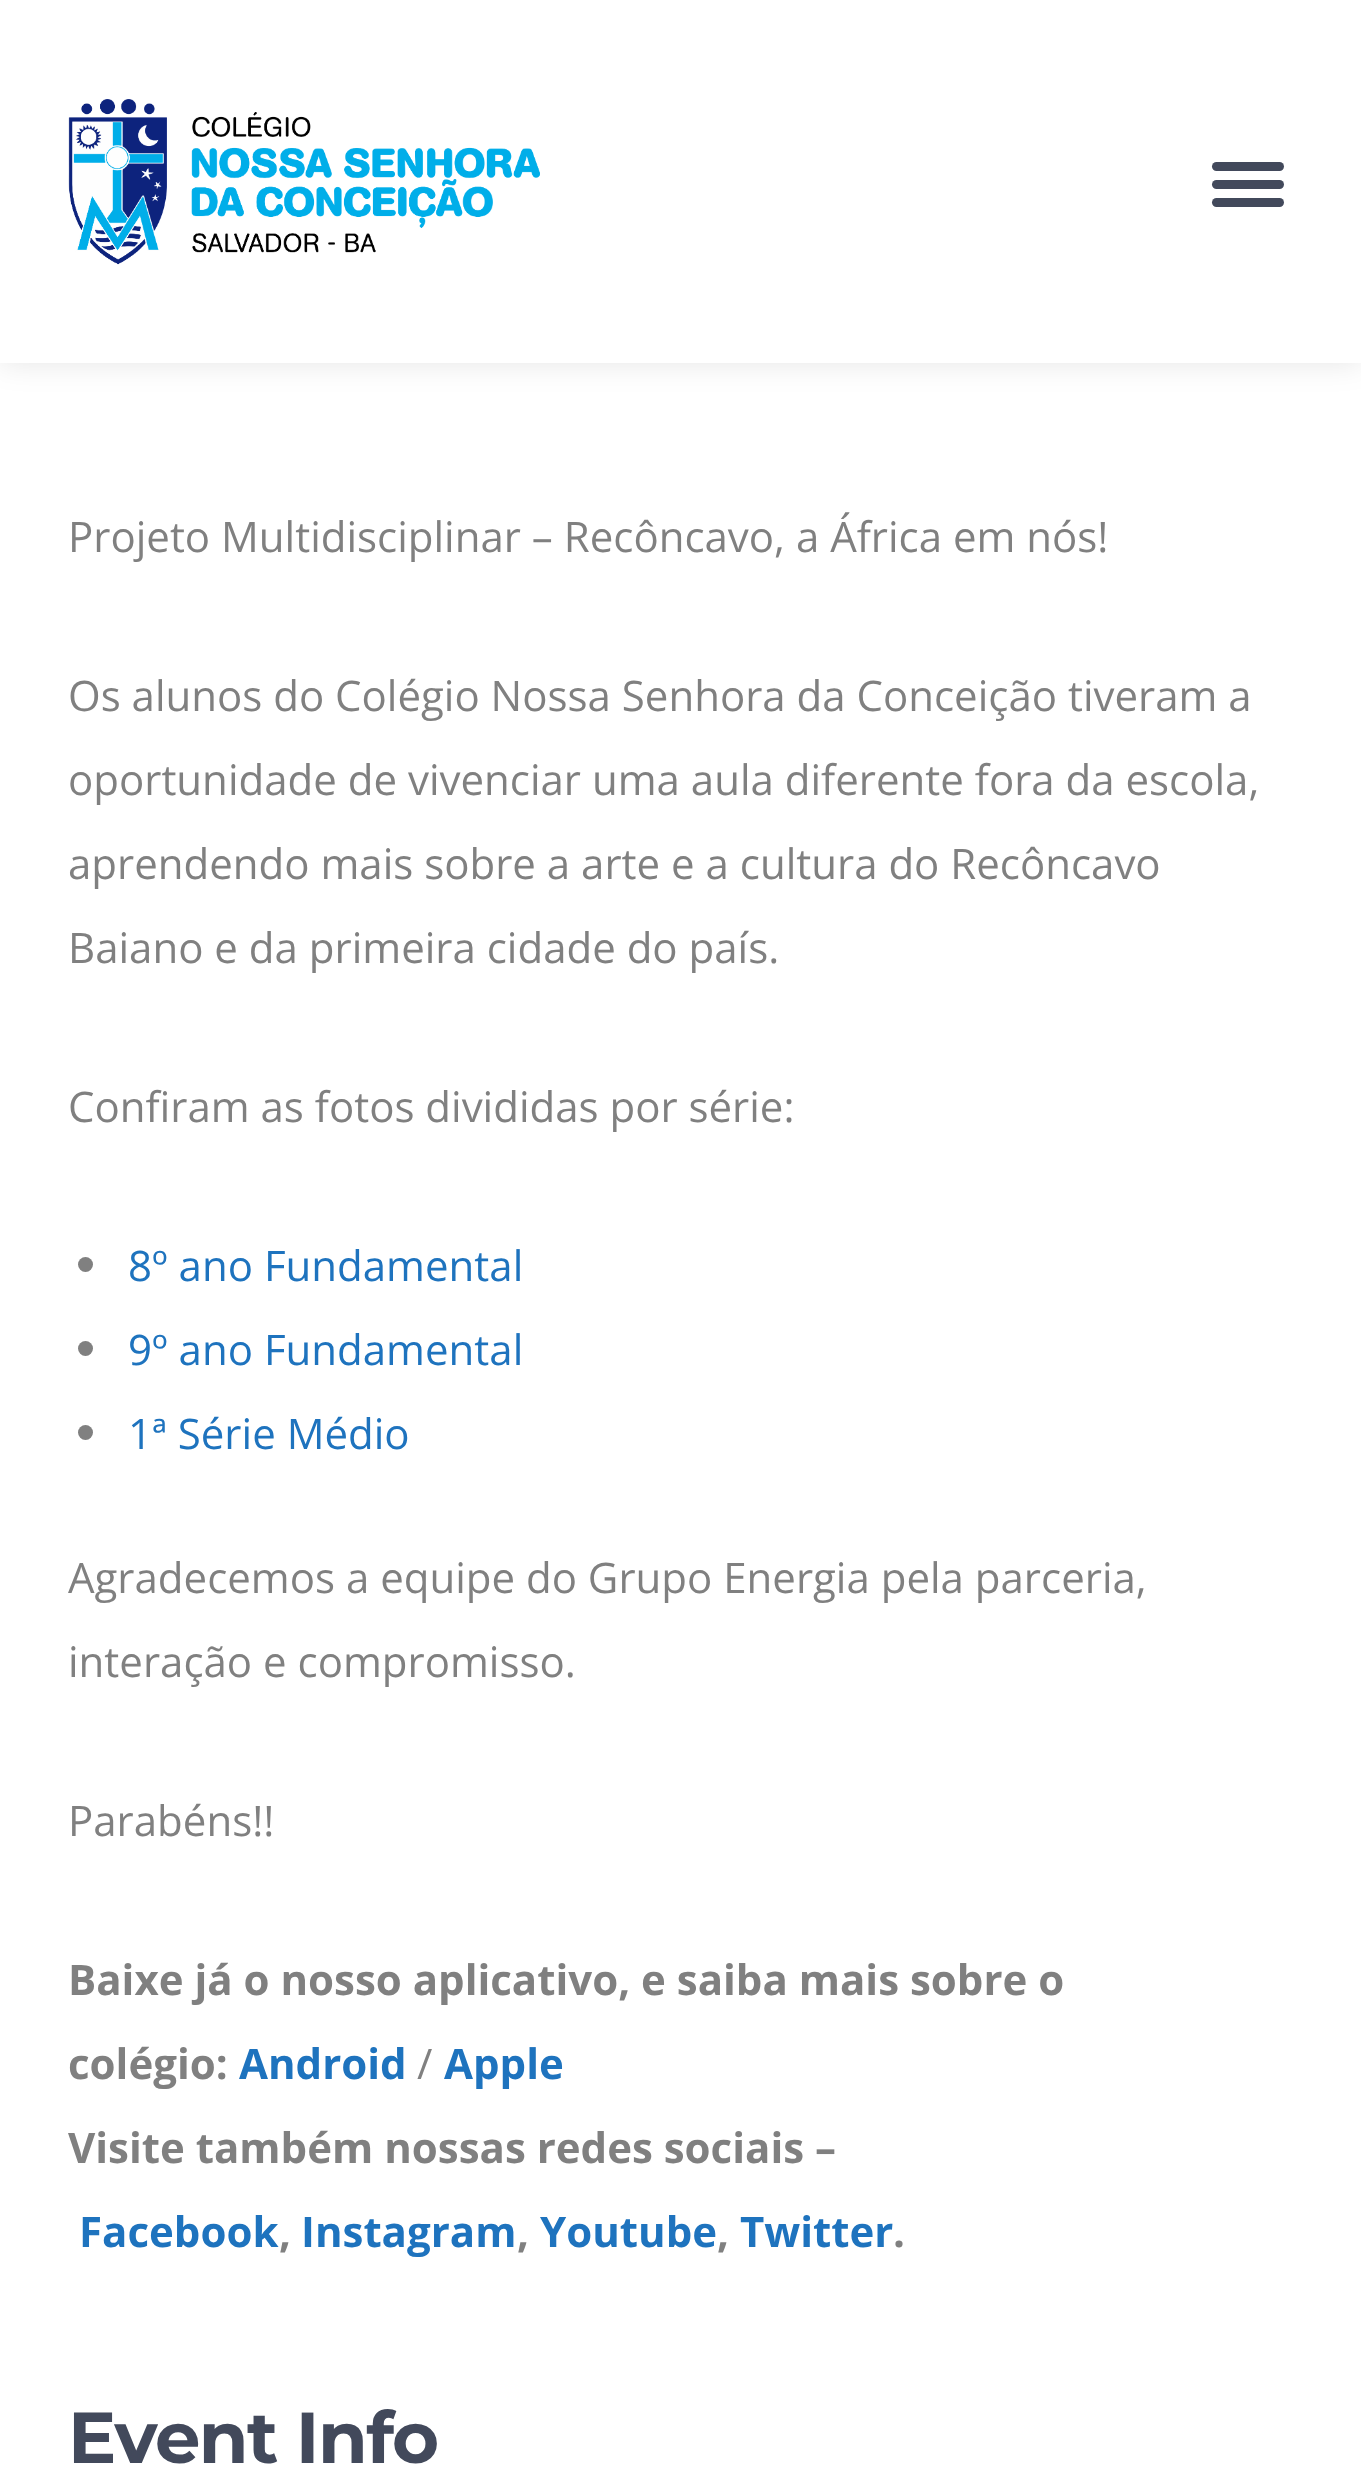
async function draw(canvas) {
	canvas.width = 1361;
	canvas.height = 2476;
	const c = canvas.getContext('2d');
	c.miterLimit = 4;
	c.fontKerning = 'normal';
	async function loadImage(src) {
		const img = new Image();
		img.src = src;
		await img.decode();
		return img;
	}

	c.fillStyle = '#fff';
	c.fillRect(0, 0, 1361, 2476);
	c.fillStyle = '#0000001a';
	c.filter = 'blur(15px)';
	c.beginPath();
	c.rect(0, 0, 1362, 363);
	c.fill();
	c.filter = 'none';
	c.fillStyle = '#fff';
	c.fillRect(0, 0, 1361, 363);
	c.drawImage(await loadImage('img1.png'), 68, 99, 472, 166);
	c.fillStyle = '#42495b';
	c.beginPath();
	c.roundRect(1212, 162, 72, 9, 4.5);
	c.fill();
	c.beginPath();
	c.roundRect(1212, 180, 72, 9, 4.5);
	c.fill();
	c.beginPath();
	c.roundRect(1212, 198, 72, 9, 4.5);
	c.fill();
	c.font = '42px Open Sans';
	c.fillStyle = '#808080';
	for (const [text, x, y] of [
		['Projeto Multidisciplinar – Recôncavo, a África em nós!', 68, 552],
		['Os alunos do Colégio Nossa Senhora da Conceição tiveram a', 68, 711],
		['oportunidade de vivenciar uma aula diferente fora da escola,', 68, 795],
		['aprendendo mais sobre a arte e a cultura do Recôncavo', 68, 879],
		['Baiano e da primeira cidade do país.', 68, 963],
		['Confiram as fotos divididas por série:', 68, 1122],
	]) {
		c.fillText(text, x, y);
	}
	c.beginPath();
	c.arc(85.5, 1264.5, 7.5, 0, 2 * Math.PI);
	c.fill();
	c.fillStyle = '#1e73be';
	c.fillText('8º ano Fundamental', 128, 1281);
	c.fillStyle = '#808080';
	c.beginPath();
	c.arc(85.5, 1348.5, 7.5, 0, 2 * Math.PI);
	c.fill();
	c.fillStyle = '#1e73be';
	c.fillText('9º ano Fundamental', 128, 1365);
	c.fillStyle = '#808080';
	c.beginPath();
	c.arc(85.5, 1432.5, 7.5, 0, 2 * Math.PI);
	c.fill();
	c.fillStyle = '#1e73be';
	c.fillText('1ª Série Médio', 128, 1449);
	c.fillStyle = '#808080';
	for (const [text, x, y] of [
		['Agradecemos a equipe do Grupo Energia pela parceria,', 68, 1593],
		['interação e compromisso.', 68, 1677],
		['Parabéns!!', 68, 1836],
	]) {
		c.fillText(text, x, y);
	}
	c.font = 'bold 42px Open Sans';
	c.fillText('Baixe já o nosso aplicativo, e saiba mais sobre o', 68, 1995);
	c.fillText('colégio:', 68, 2079);
	c.fillStyle = '#1e73be';
	c.fillText('Android', 239, 2079);
	c.font = '42px Open Sans';
	c.fillStyle = '#808080';
	c.fillText('/', 417, 2079);
	c.font = 'bold 42px Open Sans';
	c.fillStyle = '#1e73be';
	c.fillText('Apple', 444, 2079);
	c.fillStyle = '#808080';
	c.fillText('Visite também nossas redes sociais –', 68, 2163);
	c.fillStyle = '#1e73be';
	c.fillText('Facebook', 79, 2247);
	c.fillStyle = '#808080';
	c.fillText(',', 279, 2247);
	c.fillStyle = '#1e73be';
	c.fillText('Instagram', 301, 2247);
	c.fillStyle = '#808080';
	c.fillText(',', 517, 2247);
	c.fillStyle = '#1e73be';
	c.fillText('Youtube', 540, 2247);
	c.fillStyle = '#808080';
	c.fillText(',', 717, 2247);
	c.fillStyle = '#1e73be';
	c.fillText('Twitter', 740, 2247);
	c.fillStyle = '#808080';
	c.fillText('.', 893, 2247);
	c.letterSpacing = '-1.5px';
	c.font = 'bold 72px Montserrat';
	c.fillStyle = '#42495b';
	c.fillText('Event Info', 68, 2463);
}

draw(document.querySelector('canvas'));
